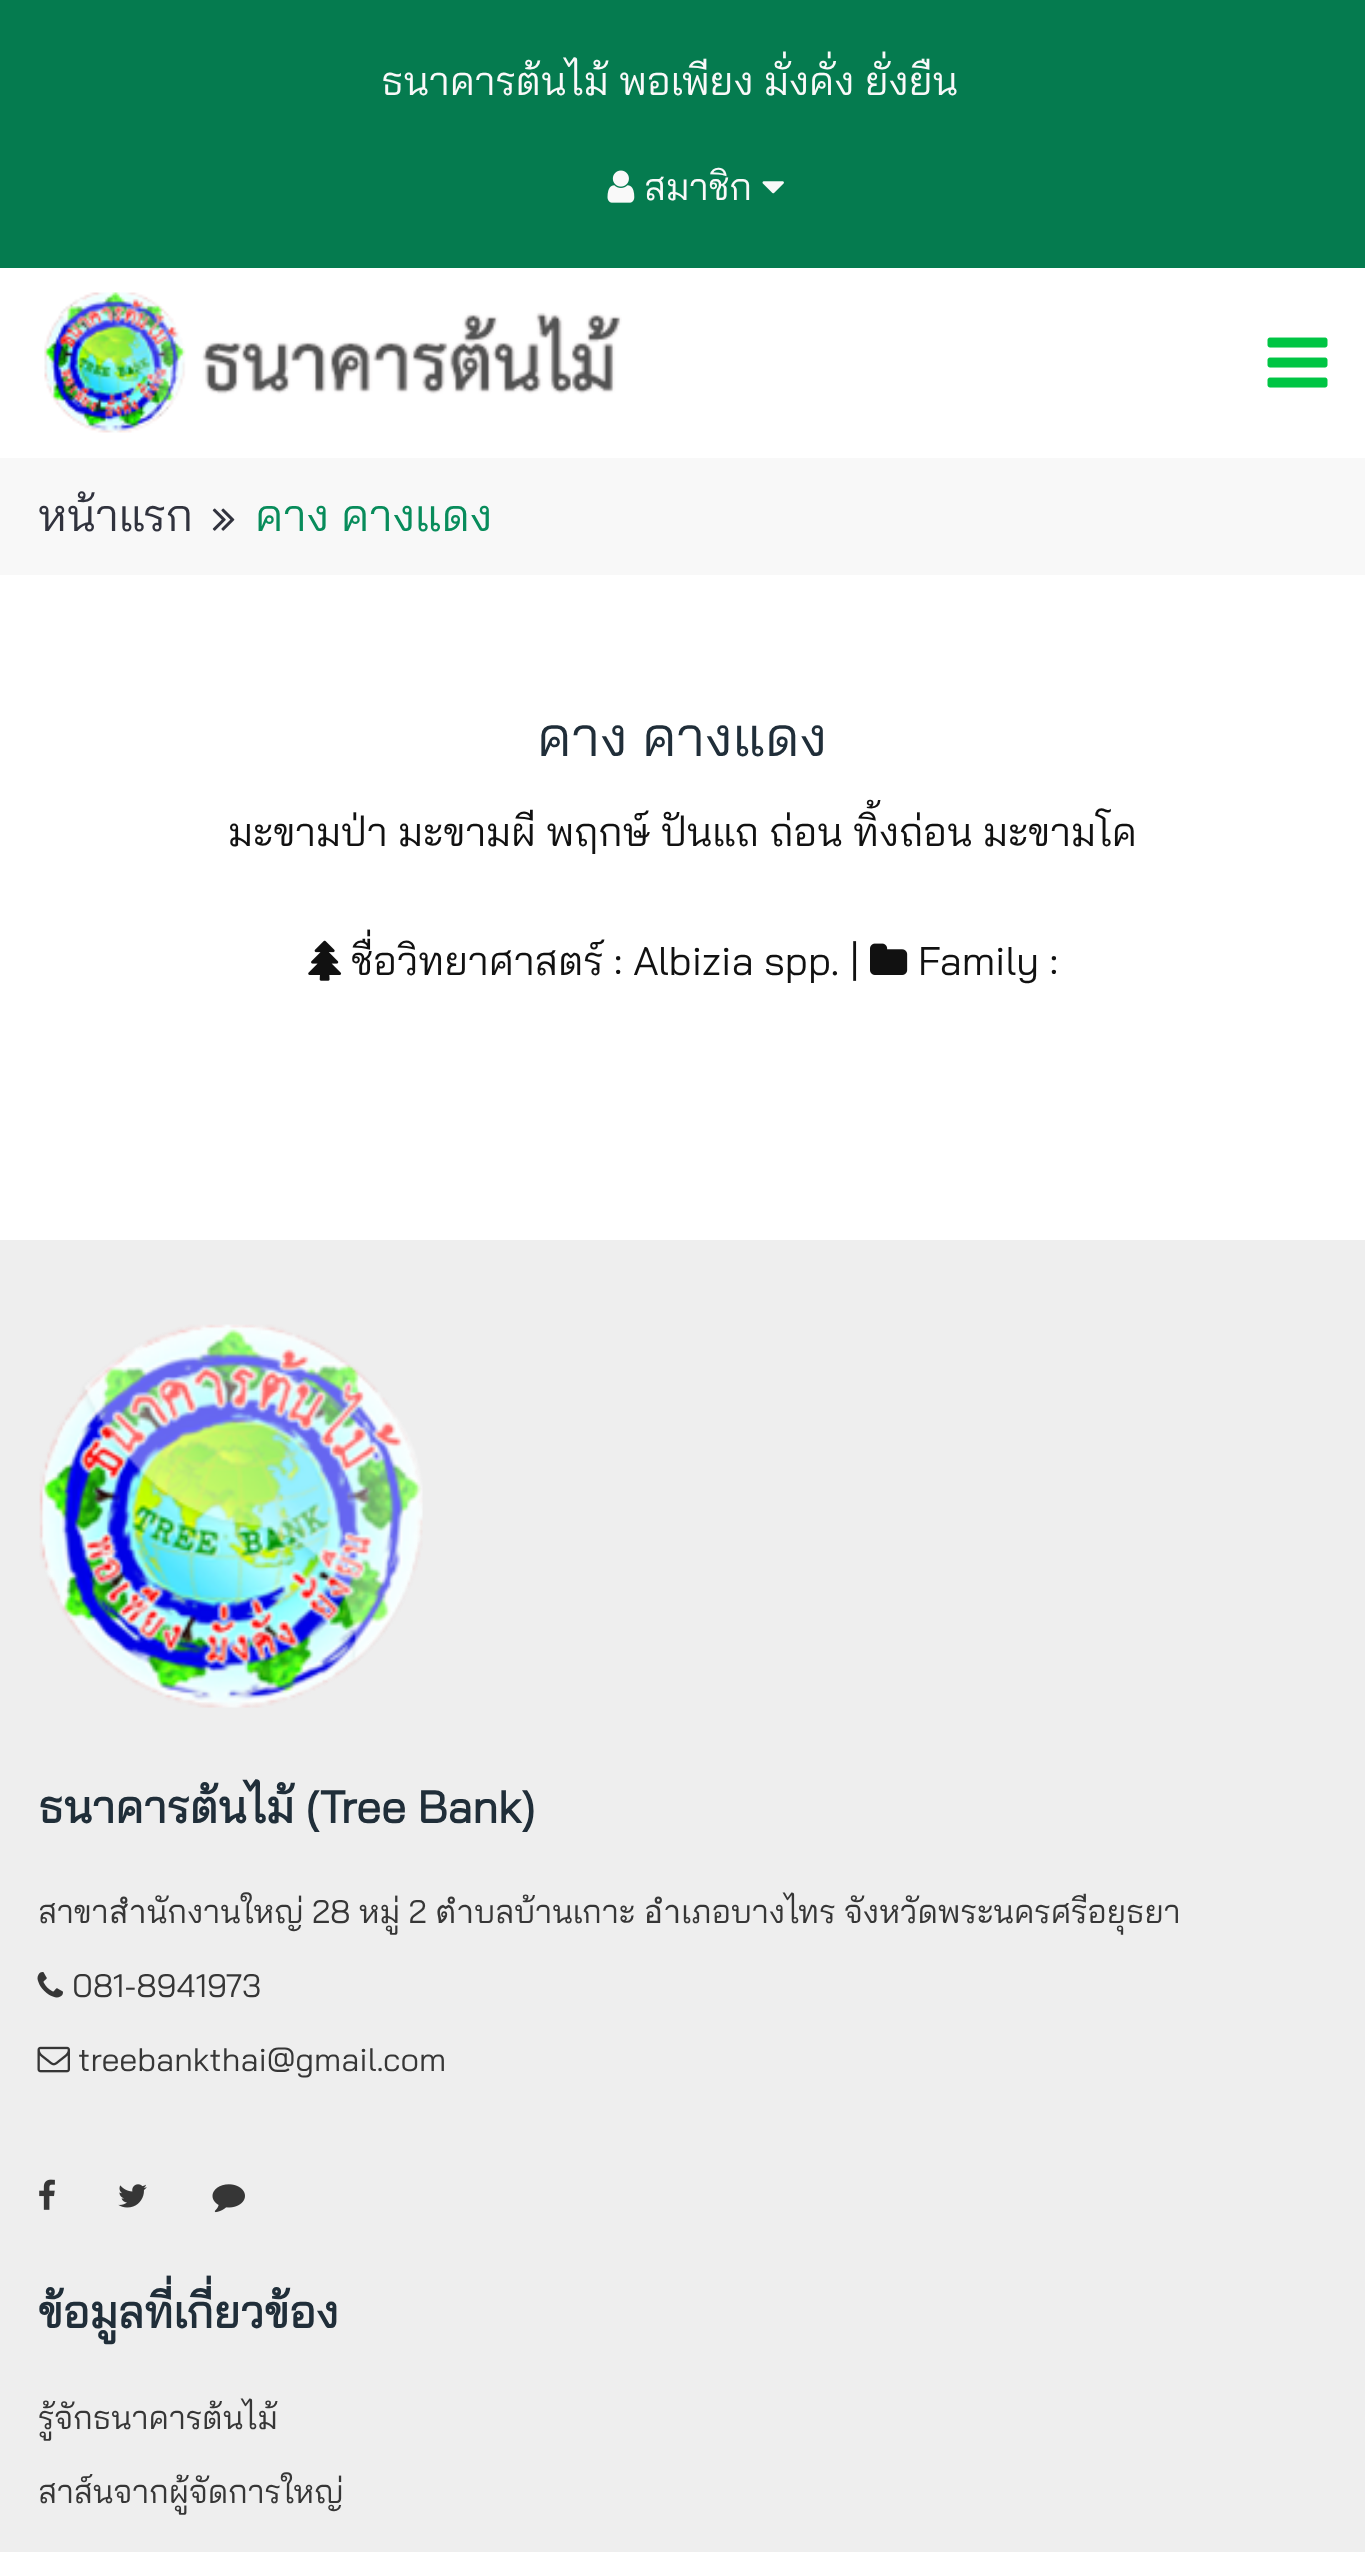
async function draw(canvas) {
	canvas.width = 1365;
	canvas.height = 2552;
	const c = canvas.getContext('2d');
	c.miterLimit = 4;
	c.fontKerning = 'normal';
	async function loadImage(src) {
		const img = new Image();
		img.src = src;
		await img.decode();
		return img;
	}

	c.fillStyle = '#fff';
	c.fillRect(0, 0, 1365, 2552);
	c.fillStyle = '#057b4f';
	c.fillRect(0, 0, 1365, 268);
	c.font = '40px Bai Jamjuree';
	c.fillStyle = '#f9f9f9';
	c.fillText('ธนาคารต้นไม้ พอเพียง มั่งคั่ง ยั่งยืน', 381, 95);
	c.drawImage(await loadImage('img1.png'), 607, 170, 28, 33);
	c.font = '37.5px Bai Jamjuree';
	c.fillText('สมาชิก', 644, 200);
	c.drawImage(await loadImage('img2.png'), 762, 181, 22, 13);
	c.drawImage(await loadImage('img3.png'), 44, 292, 578, 141);
	c.drawImage(await loadImage('img4.png'), 1267, 337, 61, 51);
	c.fillStyle = '#f8f8f8';
	c.fillRect(0, 458, 1365, 117);
	c.font = '45px Bai Jamjuree';
	c.fillStyle = '#31333e';
	c.fillText('หน้าแรก', 38, 531);
	c.drawImage(await loadImage('img5.png'), 212, 508, 23, 23);
	c.fillStyle = '#088c5b';
	c.fillText('คาง คางแดง', 255, 531);
	c.font = '55px Bai Jamjuree';
	c.fillStyle = '#202e39';
	c.fillText('คาง คางแดง', 537, 756);
	c.font = '40px Bai Jamjuree';
	c.fillStyle = '#111';
	c.fillText('มะขามป่า มะขามผี พฤกษ์ ปันแถ ถ่อน ทิ้งถ่อน มะขามโค', 228, 846);
	c.drawImage(await loadImage('img6.png'), 308, 940, 34, 41);
	c.fillText('ชื่อวิทยาศาสตร์ : Albizia spp. |', 351, 975);
	c.drawImage(await loadImage('img7.png'), 870, 943, 38, 32);
	c.fillText('Family :', 918, 975);
	c.fillStyle = '#eee';
	c.fillRect(0, 1240, 1365, 1312);
	c.drawImage(await loadImage('img8.png'), 39, 1324, 384, 384);
	c.font = 'bold 45px Bai Jamjuree';
	c.fillStyle = '#202e39';
	c.fillText('ธนาคารต้นไม้ (Tree Bank)', 38, 1823);
	c.font = '32.5px Bai Jamjuree';
	c.fillStyle = '#363636';
	c.fillText('สาขาสำนักงานใหญ่ 28 หมู่ 2 ตำบลบ้านเกาะ อำเภอบางไทร จังหวัดพระนครศรีอยุธยา', 38, 1923);
	c.drawImage(await loadImage('img9.png'), 37, 1972, 26, 26);
	c.fillText('081-8941973', 72, 1997);
	c.drawImage(await loadImage('img10.png'), 37, 2046, 33, 27);
	c.fillText('treebankthai@gmail.com', 78, 2071);
	c.drawImage(await loadImage('img11.png'), 39, 2179, 16, 31);
	c.drawImage(await loadImage('img12.png'), 118, 2184, 29, 24);
	c.drawImage(await loadImage('img13.png'), 212, 2184, 33, 29);
	c.font = 'bold 45px Bai Jamjuree';
	c.fillStyle = '#202e39';
	c.fillText('ข้อมูลที่เกี่ยวข้อง', 38, 2328);
	c.font = '32.5px Bai Jamjuree';
	c.fillStyle = '#363636';
	c.fillText('รู้จักธนาคารต้นไม้', 38, 2429);
	c.fillText('สาส์นจากผู้จัดการใหญ่', 38, 2503);
}

draw(document.querySelector('canvas'));
